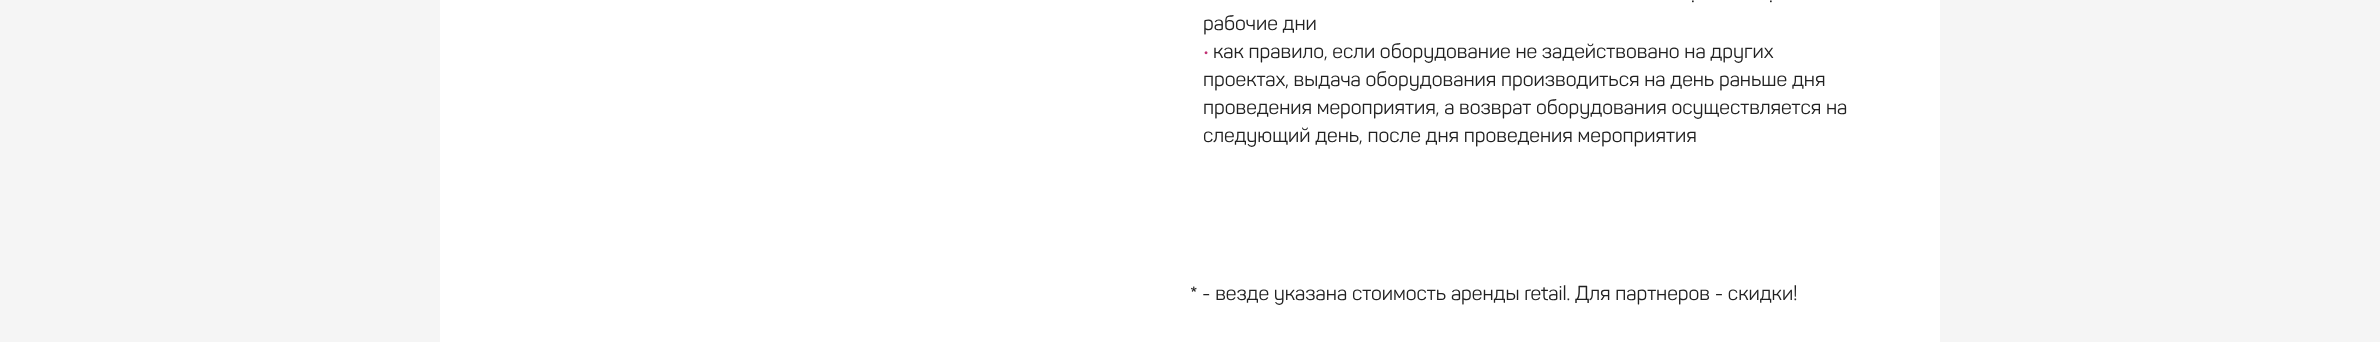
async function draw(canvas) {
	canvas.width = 2380;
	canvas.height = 342;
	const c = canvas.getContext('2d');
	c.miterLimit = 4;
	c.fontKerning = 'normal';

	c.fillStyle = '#f5f5f5';
	c.fillRect(0, 0, 2380, 342);
	c.fillStyle = '#fff';
	c.fillRect(440, 0, 1500, 342);
	c.font = '20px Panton';
	c.fillStyle = '#212121';
	for (const [text, x, y] of [
		['.', 1691, 2],
		['.', 1769, 2],
		['рабочие дни', 1203, 30],
	]) {
		c.fillText(text, x, y);
	}
	c.fillStyle = '#c13073';
	c.fillText('•', 1203, 58);
	c.fillStyle = '#212121';
	for (const [text, x, y] of [
		['как правило, если оборудование не задействовано на других', 1213, 58],
		['проектах, выдача оборудования производиться на день раньше дня', 1203, 86],
		['проведения мероприятия, а возврат оборудования осуществляется на', 1203, 114],
		['следующий день, после дня проведения мероприятия', 1203, 142],
	]) {
		c.fillText(text, x, y);
	}
	c.font = 'bold 20px Panton';
	c.fillText('*', 1190, 300);
	c.font = '20px Panton';
	c.fillText('- везде указана стоимость аренды retail. Для партнеров - скидки!', 1202, 300);
}

draw(document.querySelector('canvas'));
